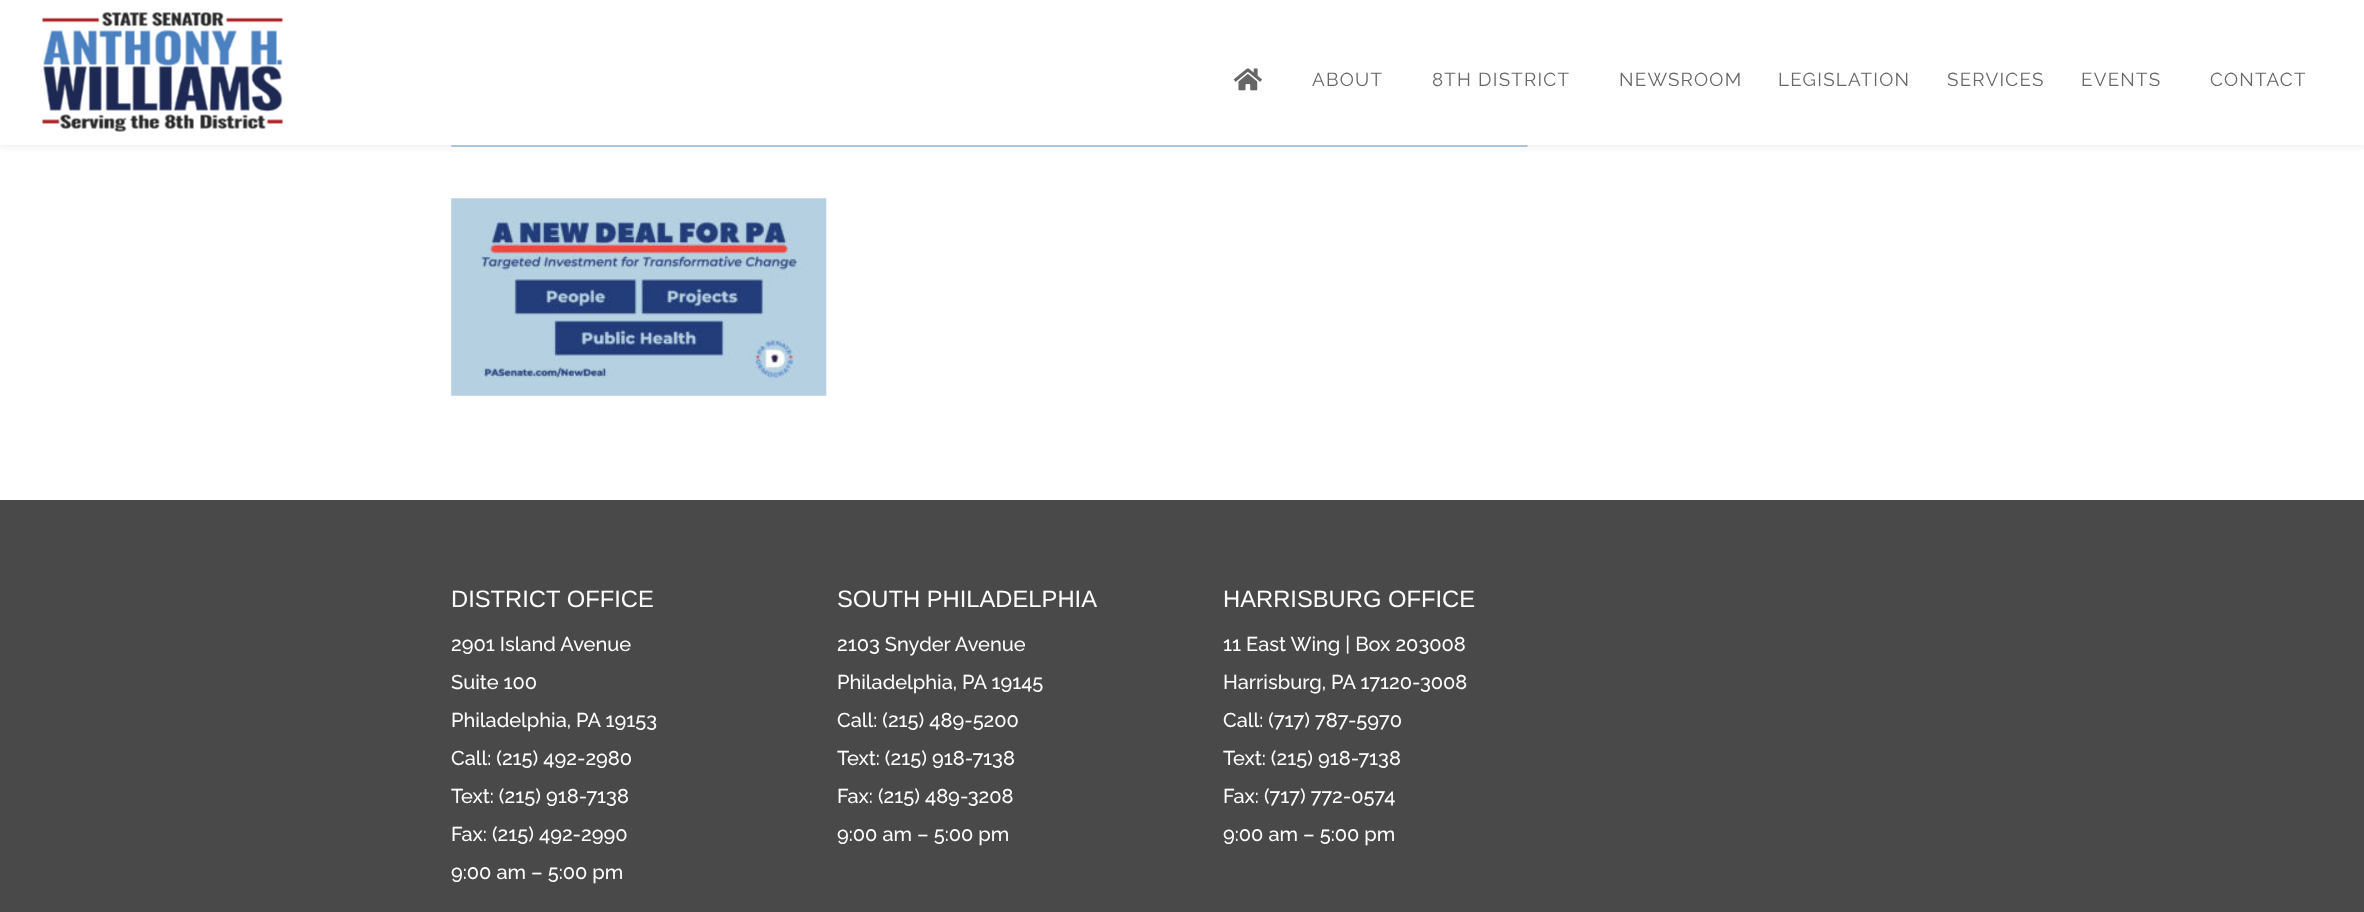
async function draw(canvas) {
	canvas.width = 2364;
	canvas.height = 912;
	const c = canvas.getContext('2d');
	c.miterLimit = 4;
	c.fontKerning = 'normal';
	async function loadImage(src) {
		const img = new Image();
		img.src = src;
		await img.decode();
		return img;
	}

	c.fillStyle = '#fff';
	c.fillRect(0, 0, 2364, 912);
	c.drawImage(await loadImage('img3.png'), 451, 145, 1077, 2);
	c.fillStyle = '#0000001a';
	c.filter = 'blur(4.5px)';
	c.beginPath();
	c.rect(0, 0, 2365, 145);
	c.fill();
	c.filter = 'none';
	c.fillStyle = '#fff';
	c.fillRect(0, 0, 2364, 145);
	c.drawImage(await loadImage('img1.png'), 42, 12, 241, 120);
	c.drawImage(await loadImage('img2.png'), 1233, 68, 29, 23);
	c.letterSpacing = '1.25px';
	c.font = '18.75px Raleway';
	c.fillStyle = '#666';
	for (const [text, x, y] of [
		['ABOUT', 1312, 86],
		['8TH DISTRICT', 1432, 86],
		['NEWSROOM', 1619, 86],
		['LEGISLATION', 1778, 86],
		['SERVICES', 1947, 86],
		['EVENTS', 2081, 86],
		['CONTACT', 2210, 86],
	]) {
		c.fillText(text, x, y);
	}
	c.drawImage(await loadImage('img4.png'), 451, 198, 376, 198);
	c.fillStyle = '#494949';
	c.fillRect(0, 500, 2364, 412);
	c.letterSpacing = '0px';
	c.font = '23.75px Liberation Sans';
	c.fillStyle = '#fff';
	c.fillText('DISTRICT OFFICE', 451, 607);
	c.font = '500 20px Raleway';
	for (const [text, x, y] of [
		['2901 Island Avenue', 451, 651],
		['Suite 100', 451, 689],
		['Philadelphia, PA 19153', 451, 727],
		['Call: (215) 492-2980', 451, 765],
		['Text: (215) 918-7138', 451, 803],
		['Fax: (215) 492-2990', 451, 841],
		['9:00 am – 5:00 pm', 451, 879],
	]) {
		c.fillText(text, x, y);
	}
	c.font = '23.75px Liberation Sans';
	c.fillText('SOUTH PHILADELPHIA', 837, 607);
	c.font = '500 20px Raleway';
	for (const [text, x, y] of [
		['2103 Snyder Avenue', 837, 651],
		['Philadelphia, PA 19145', 837, 689],
		['Call: (215) 489-5200', 837, 727],
		['Text: (215) 918-7138', 837, 765],
		['Fax: (215) 489-3208', 837, 803],
		['9:00 am – 5:00 pm', 837, 841],
	]) {
		c.fillText(text, x, y);
	}
	c.font = '23.75px Liberation Sans';
	c.fillText('HARRISBURG OFFICE', 1223, 607);
	c.font = '500 20px Raleway';
	for (const [text, x, y] of [
		['11 East Wing | Box 203008', 1223, 651],
		['Harrisburg, PA 17120-3008', 1223, 689],
		['Call: (717) 787-5970', 1223, 727],
		['Text: (215) 918-7138', 1223, 765],
		['Fax: (717) 772-0574', 1223, 803],
		['9:00 am – 5:00 pm', 1223, 841],
	]) {
		c.fillText(text, x, y);
	}
}

draw(document.querySelector('canvas'));
